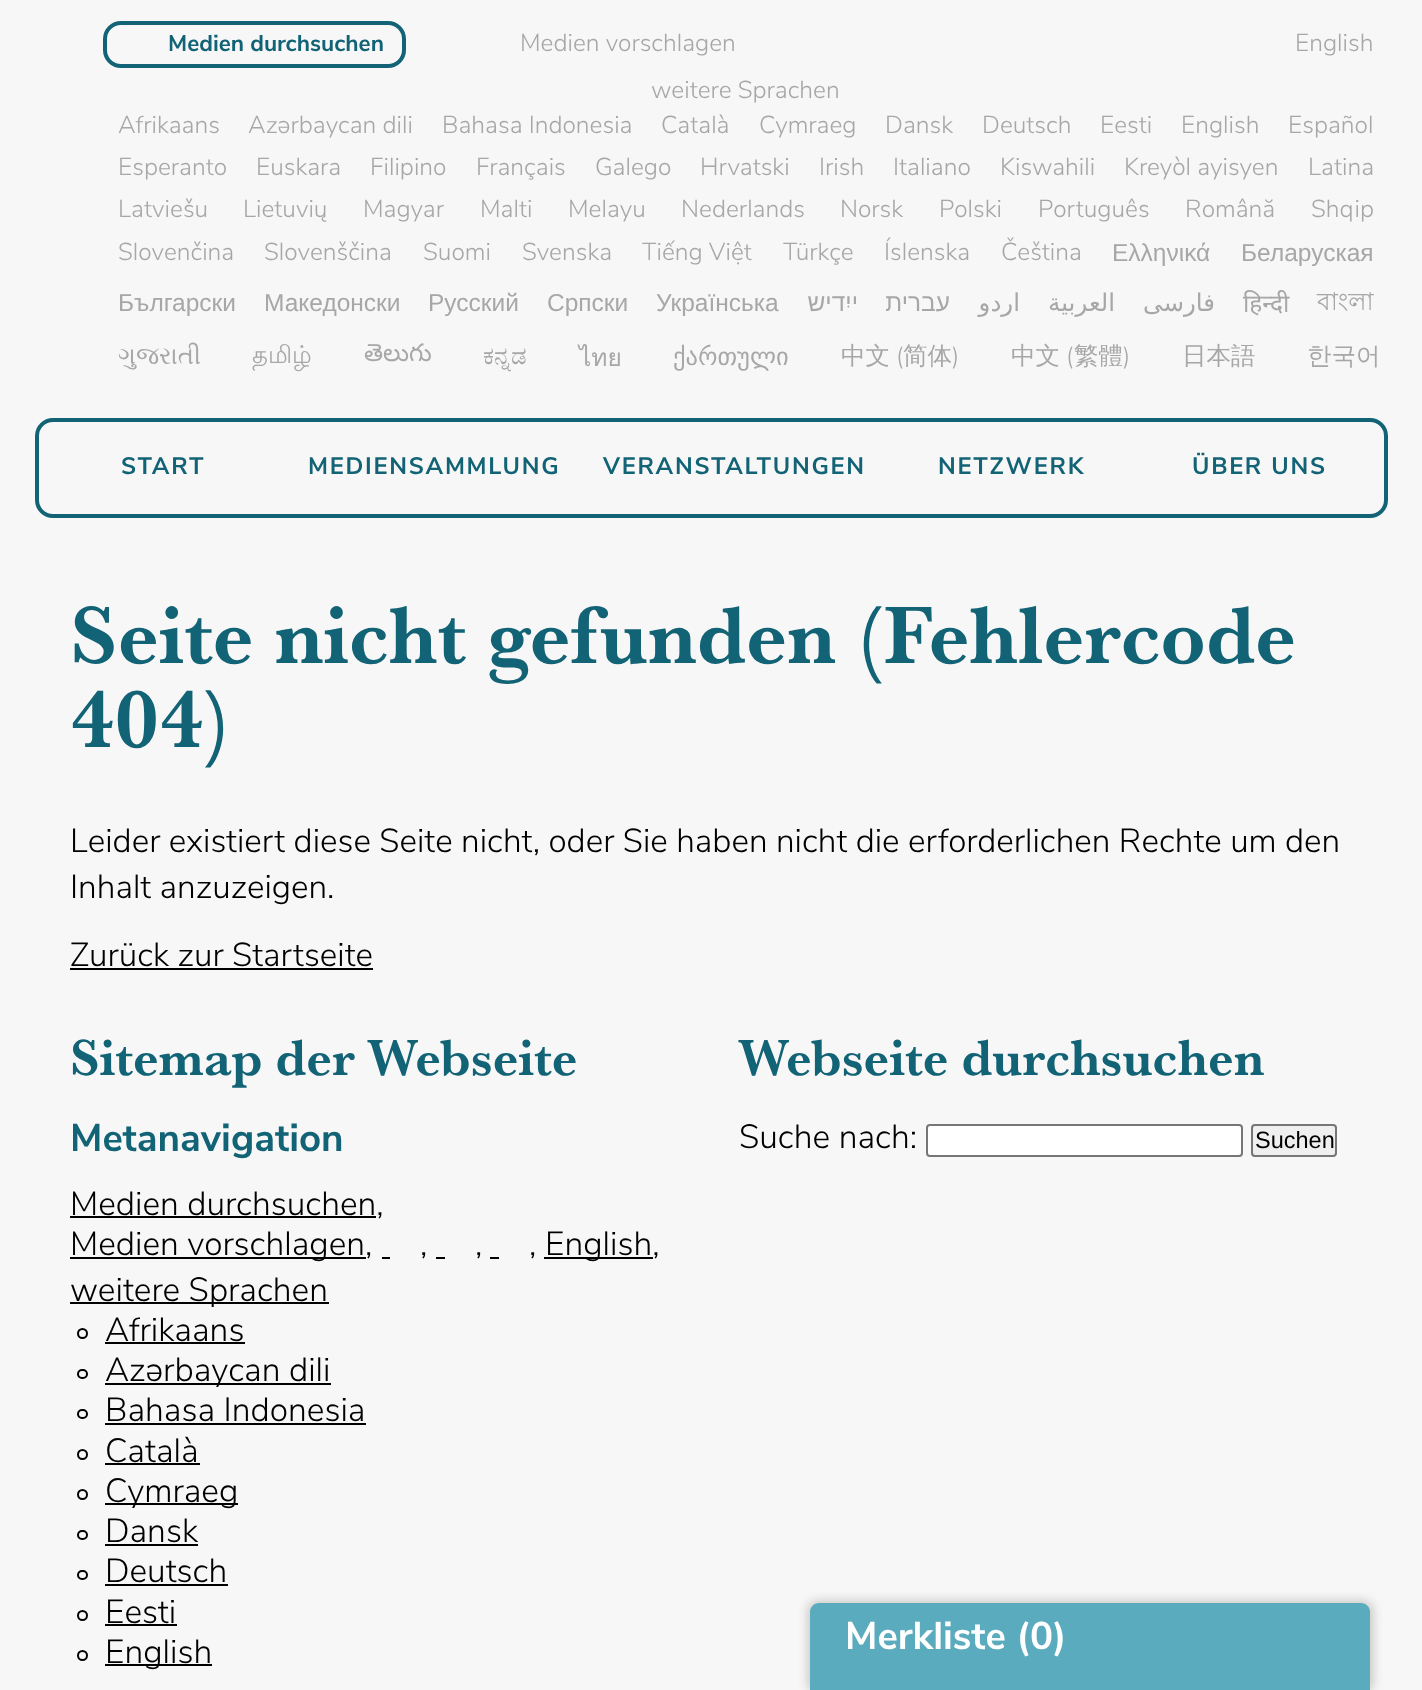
async function draw(canvas) {
	canvas.width = 1422;
	canvas.height = 1690;
	const c = canvas.getContext('2d');
	c.miterLimit = 4;
	c.fontKerning = 'normal';

	c.fillStyle = '#f7f7f7';
	c.fillRect(0, 0, 1422, 1690);
	c.beginPath();
	c.roundRect(105, 23, 299, 43, 16);
	c.strokeStyle = '#126375';
	c.lineWidth = 4;
	c.stroke();
	c.font = 'bold 22.75px Nunito Sans';
	c.fillStyle = '#126375';
	c.fillText('Medien durchsuchen', 168, 51);
	c.font = '300 24.5px Nunito Sans';
	c.fillStyle = '#a7a7a7';
	for (const [text, x, y] of [
		['Medien vorschlagen', 520, 51],
		['English', 1295, 51],
		['weitere Sprachen', 651, 98],
		['Afrikaans', 118, 133],
		['Azərbaycan dili', 248, 133],
		['Bahasa Indonesia', 442, 133],
		['Català', 661, 133],
		['Cymraeg', 759, 133],
		['Dansk', 885, 133],
		['Deutsch', 982, 133],
		['Eesti', 1100, 133],
		['English', 1181, 133],
		['Español', 1288, 133],
		['Esperanto', 118, 175],
		['Euskara', 256, 175],
		['Filipino', 370, 175],
		['Français', 476, 175],
		['Galego', 595, 175],
		['Hrvatski', 700, 175],
		['Irish', 819, 175],
		['Italiano', 893, 175],
		['Kiswahili', 1000, 175],
		['Kreyòl ayisyen', 1124, 175],
		['Latina', 1308, 175],
		['Latviešu', 118, 217],
		['Lietuvių', 243, 217],
		['Magyar', 363, 217],
		['Malti', 480, 217],
		['Melayu', 568, 217],
		['Nederlands', 681, 217],
		['Norsk', 840, 217],
		['Polski', 939, 217],
		['Português', 1038, 217],
		['Română', 1185, 217],
		['Shqip', 1311, 217],
		['Slovenčina', 118, 260],
		['Slovenščina', 264, 260],
		['Suomi', 423, 260],
		['Svenska', 522, 260],
		['Tiếng Việt', 642, 260],
		['Türkçe', 783, 260],
		['Íslenska', 884, 260],
		['Čeština', 1001, 260],
	]) {
		c.fillText(text, x, y);
	}
	c.font = '24.5px Liberation Sans';
	for (const [text, x, y] of [
		['Ελληνικά', 1112, 261],
		['Беларуская', 1241, 261],
		['Български', 118, 311],
		['Македонски', 264, 311],
		['Русский', 428, 311],
		['Српски', 547, 311],
		['Українська', 656, 311],
	]) {
		c.fillText(text, x, y);
	}
	c.direction = 'rtl';
	c.fillText('ייִדיש', 858, 311);
	c.fillText('עברית', 950, 311);
	c.font = '24.5px DejaVu Sans';
	for (const [text, x, y] of [
		['اردو', 1020, 311],
		['العربية', 1115, 311],
		['فارسی', 1215, 311],
	]) {
		c.fillText(text, x, y);
	}
	c.direction = 'ltr';
	c.font = '24.5px Noto Sans';
	c.fillText('हिन्दी', 1243, 312);
	c.font = '24.5px Lohit Bengali';
	c.fillText('বাংলা', 1317, 310);
	c.font = '24.5px FreeSerif';
	c.fillText('ગુજરાતી', 118, 364);
	c.font = '24.5px Lohit Tamil';
	c.fillText('தமிழ்', 252, 363);
	c.font = '24.5px Noto Sans Telugu';
	c.fillText('తెలుగు', 364, 361);
	c.font = '24.5px FreeSerif';
	c.fillText('ಕನ್ನಡ', 483, 364);
	c.font = '24.5px Loma';
	c.fillText('ไทย', 579, 366);
	c.font = '24.5px DejaVu Sans';
	c.fillText('ქართული', 673, 365);
	c.font = '500 24.5px WenQuanYi Zen Hei';
	c.fillText('中文', 841, 364);
	c.font = '300 24.5px Nunito Sans';
	c.fillText('(', 896, 364);
	c.font = '500 24.5px WenQuanYi Zen Hei';
	c.fillText('简体', 903, 364);
	c.font = '300 24.5px Nunito Sans';
	c.fillText(')', 952, 364);
	c.font = '500 24.5px WenQuanYi Zen Hei';
	c.fillText('中文', 1011, 364);
	c.font = '300 24.5px Nunito Sans';
	c.fillText('(', 1066, 364);
	c.font = '500 24.5px WenQuanYi Zen Hei';
	c.fillText('繁體', 1074, 364);
	c.font = '300 24.5px Nunito Sans';
	c.fillText(')', 1123, 364);
	c.font = '500 24.5px WenQuanYi Zen Hei';
	c.fillText('日本語', 1182, 364);
	c.fillText('한국어', 1307, 364);
	c.beginPath();
	c.roundRect(37, 420, 1349, 96, 16);
	c.stroke();
	c.letterSpacing = '1.75px';
	c.font = 'bold 23.75px Nunito Sans';
	c.fillStyle = '#126375';
	for (const [text, x, y] of [
		['START', 121, 474],
		['MEDIENSAMMLUNG', 308, 474],
		['VERANSTALTUNGEN', 603, 474],
		['NETZWERK', 938, 474],
		['ÜBER UNS', 1192, 474],
	]) {
		c.fillText(text, x, y);
	}
	c.letterSpacing = '0px';
	c.font = 'bold 84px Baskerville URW';
	c.fillText('Seite nicht gefunden (Fehlercode', 70, 663);
	c.fillText('404)', 70, 747);
	c.font = '300 33.25px Nunito Sans';
	c.fillStyle = '#000';
	for (const [text, x, y] of [
		['Leider existiert diese Seite nicht, oder Sie haben nicht die erforderlichen Rechte um den', 70, 852],
		['Inhalt anzuzeigen.', 70, 898],
		['Zurück zur Startseite', 70, 966],
	]) {
		c.fillText(text, x, y);
	}
	c.fillRect(70, 968, 303, 2);
	c.font = 'bold 52.5px Baskerville URW';
	c.fillStyle = '#126375';
	c.fillText('Sitemap der Webseite', 70, 1075);
	c.font = 'bold 38.5px Nunito Sans';
	c.fillText('Metanavigation', 70, 1151);
	c.fillStyle = '#000';
	c.fillRect(70, 1216, 306, 2);
	c.font = '300 33.5px Nunito Sans';
	c.fillText('Medien durchsuchen,', 70, 1215);
	c.fillRect(70, 1257, 296, 2);
	c.fillText('Medien vorschlagen,', 70, 1255);
	c.fillRect(382, 1257, 8, 2);
	c.fillText(',', 420, 1255);
	c.fillRect(436, 1257, 9, 2);
	c.fillText(',', 475, 1255);
	c.fillRect(490, 1257, 9, 2);
	c.fillText(',', 529, 1255);
	c.fillRect(544, 1257, 109, 2);
	c.fillText('English,', 545, 1255);
	c.fillRect(70, 1302, 259, 2);
	c.fillText('weitere Sprachen', 70, 1301);
	c.beginPath();
	c.arc(82.5, 1333.5, 4.5, 0, 2 * Math.PI);
	c.strokeStyle = '#000';
	c.lineWidth = 2;
	c.stroke();
	c.fillText('Afrikaans', 105, 1341);
	c.fillRect(105, 1342, 140, 2);
	c.beginPath();
	c.roundRect(78, 1370, 9, 8, 4);
	c.stroke();
	c.fillRect(105, 1383, 226, 2);
	c.fillText('Azərbaycan dili', 105, 1381);
	c.beginPath();
	c.roundRect(78, 1410, 9, 8, 4);
	c.stroke();
	c.fillText('Bahasa Indonesia', 105, 1421);
	c.fillRect(105, 1423, 261, 2);
	c.beginPath();
	c.arc(82.5, 1454.5, 4.5, 0, 2 * Math.PI);
	c.stroke();
	c.fillText('Català', 105, 1462);
	c.fillRect(105, 1463, 95, 2);
	c.beginPath();
	c.arc(82.5, 1494.5, 4.5, 0, 2 * Math.PI);
	c.stroke();
	c.fillRect(105, 1503, 133, 2);
	c.fillText('Cymraeg', 105, 1502);
	c.beginPath();
	c.roundRect(78, 1531, 9, 8, 4);
	c.stroke();
	c.fillText('Dansk', 105, 1542);
	c.fillRect(105, 1544, 93, 2);
	c.beginPath();
	c.roundRect(78, 1571, 9, 8, 4);
	c.stroke();
	c.fillText('Deutsch', 105, 1582);
	c.fillRect(105, 1584, 123, 2);
	c.beginPath();
	c.arc(82.5, 1615.5, 4.5, 0, 2 * Math.PI);
	c.stroke();
	c.fillText('Eesti', 105, 1623);
	c.fillRect(105, 1624, 72, 2);
	c.beginPath();
	c.arc(82.5, 1655.5, 4.5, 0, 2 * Math.PI);
	c.stroke();
	c.fillRect(105, 1664, 107, 2);
	c.fillText('English', 105, 1663);
	c.font = 'bold 52.5px Baskerville URW';
	c.fillStyle = '#126375';
	c.fillText('Webseite durchsuchen', 739, 1075);
	c.font = '300 33.5px Nunito Sans';
	c.fillStyle = '#000';
	c.fillText('Suche nach:', 739, 1148);
	c.fillStyle = '#fff';
	c.beginPath();
	c.roundRect(927, 1125, 315, 31, 3);
	c.fill();
	c.strokeStyle = '#767676';
	c.stroke();
	c.fillStyle = '#efefef';
	c.beginPath();
	c.roundRect(1252, 1125, 84, 31, 3);
	c.fill();
	c.stroke();
	c.font = '23.5px Liberation Sans';
	c.fillStyle = '#000';
	c.fillText('Suchen', 1255, 1148);
	c.fillStyle = '#ccc';
	c.filter = 'blur(5px)';
	c.beginPath();
	c.roundRect(807, 1600, 567, 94, 12);
	c.fill();
	c.filter = 'none';
	c.fillStyle = '#59abbd';
	c.beginPath();
	c.moveTo(819, 1603);
	c.lineTo(1361, 1603);
	c.bezierCurveTo(1366, 1603, 1370, 1607, 1370, 1612);
	c.lineTo(1370, 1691);
	c.lineTo(810, 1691);
	c.lineTo(810, 1612);
	c.bezierCurveTo(810, 1607, 814, 1603, 819, 1603);
	c.closePath();
	c.fill();
	c.font = 'bold 38.5px Nunito Sans';
	c.fillStyle = '#fff';
	c.fillText('Merkliste (0)', 845, 1649);
}

draw(document.querySelector('canvas'));
